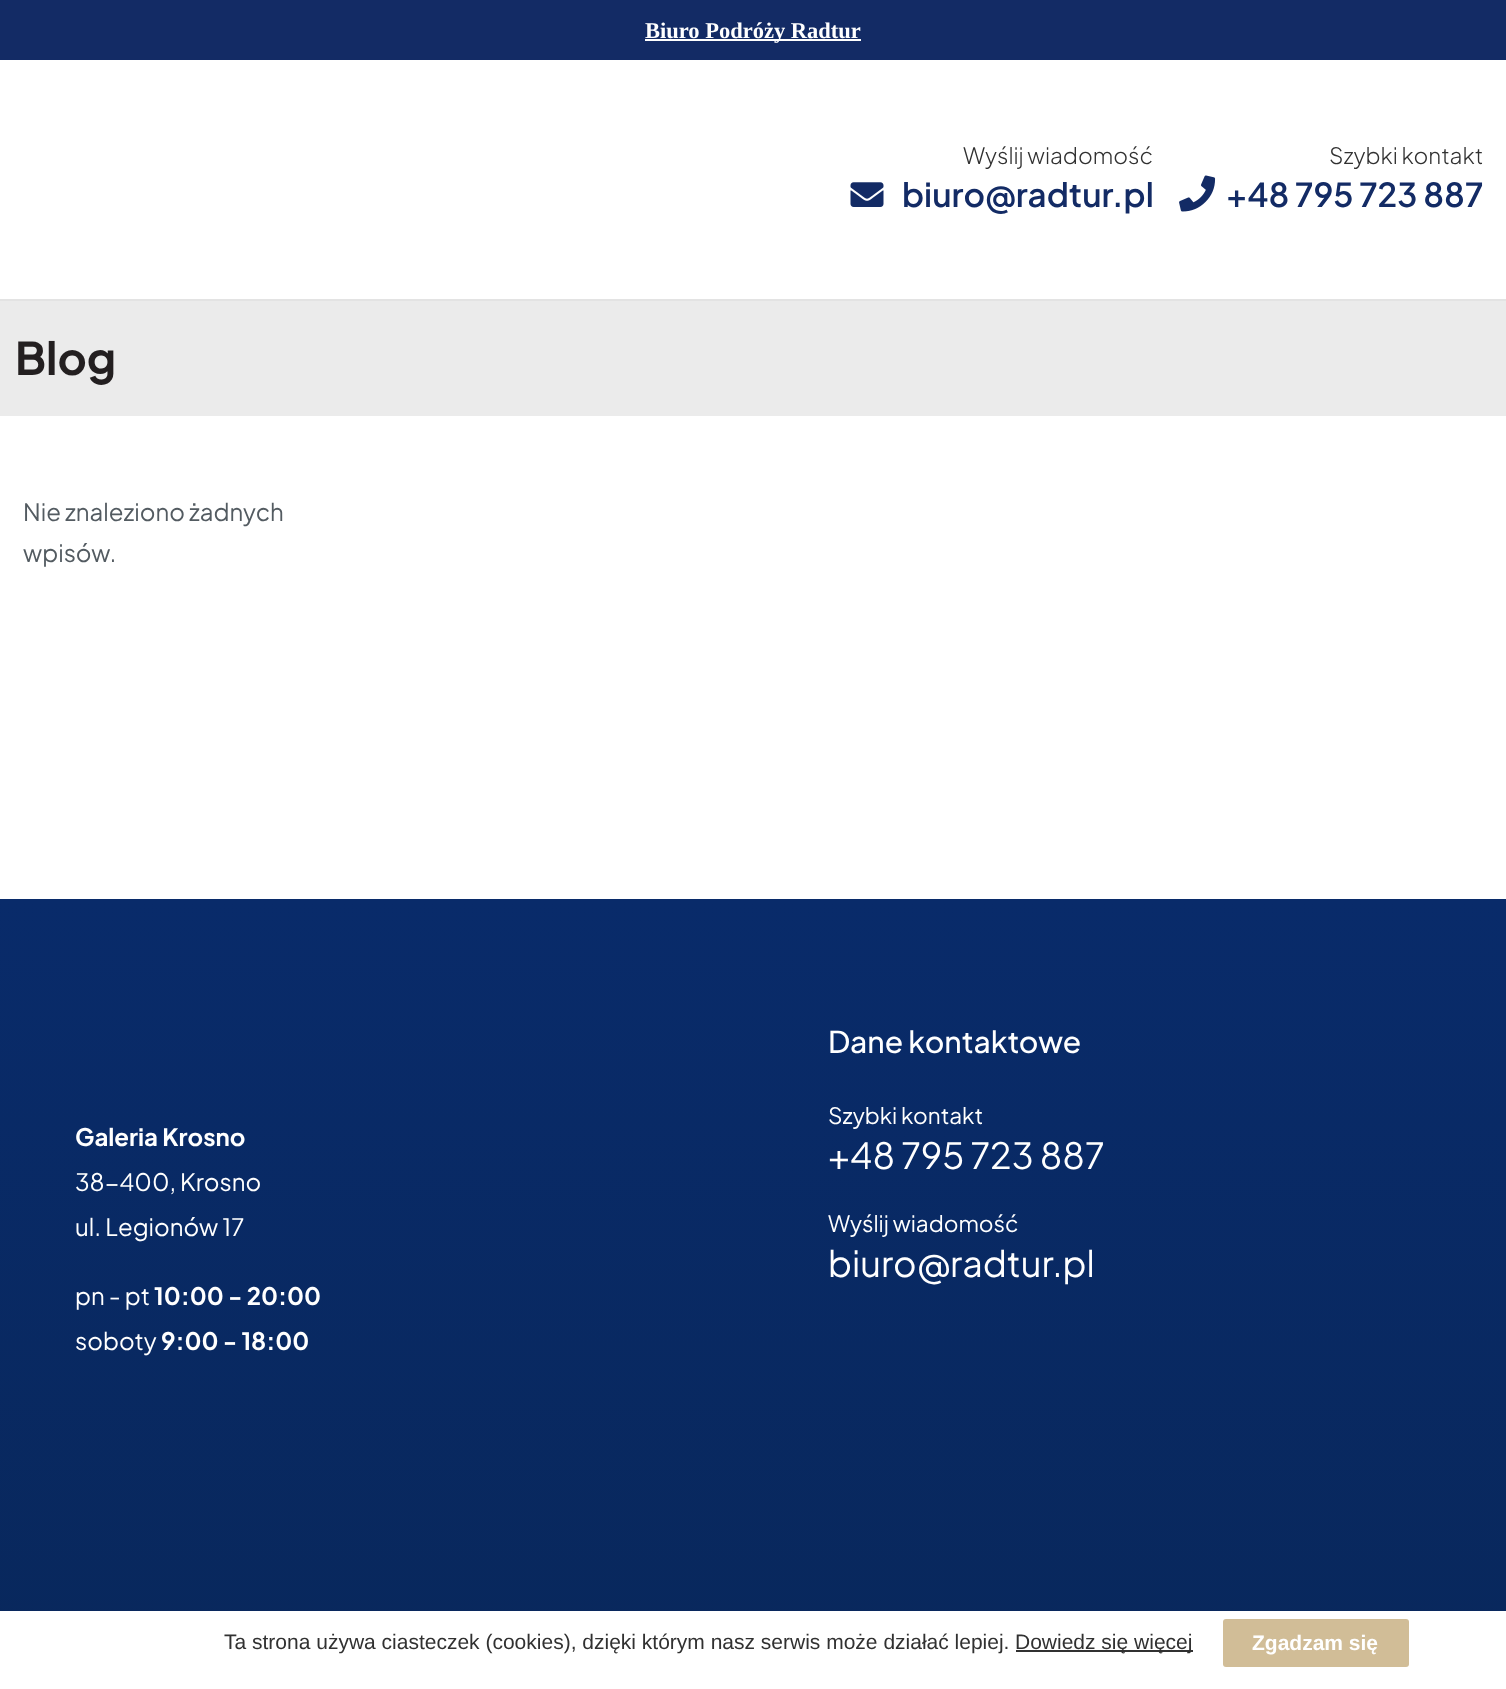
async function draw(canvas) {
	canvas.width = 1506;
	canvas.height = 1689;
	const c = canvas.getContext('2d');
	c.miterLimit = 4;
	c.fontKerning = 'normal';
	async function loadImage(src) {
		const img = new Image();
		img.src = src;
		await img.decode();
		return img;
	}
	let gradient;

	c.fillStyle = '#fff';
	c.fillRect(0, 0, 1506, 1689);
	c.fillStyle = '#132b65';
	c.fillRect(0, 0, 1506, 60);
	c.fillStyle = '#fff';
	c.fillRect(645, 39, 216, 2);
	c.font = 'bold 22.5px Liberation Serif';
	c.fillText('Biuro Podróży Radtur', 645, 38);
	c.font = '300 22.5px Plus Jakarta Sans';
	c.fillStyle = '#313131';
	c.fillText('Wyślij wiadomość', 963, 164);
	c.drawImage(await loadImage('img1.png'), 850, 182, 34, 25);
	c.font = '600 33px Plus Jakarta Sans';
	c.fillStyle = '#132b65';
	c.fillText('biuro@radtur.pl', 902, 207);
	c.font = '300 22.5px Plus Jakarta Sans';
	c.fillStyle = '#313131';
	c.fillText('Szybki kontakt', 1329, 164);
	c.drawImage(await loadImage('img2.png'), 1179, 175, 37, 37);
	c.font = '600 33px Plus Jakarta Sans';
	c.fillStyle = '#132b65';
	c.fillText('+48 795 723 887', 1226, 207);
	c.fillStyle = '#ebebeb';
	c.fillRect(0, 301, 1506, 115);
	c.fillStyle = '#e3e3e3';
	c.fillRect(0, 299, 1506, 2);
	c.font = 'bold 45px Plus Jakarta Sans';
	c.fillStyle = '#231f20';
	c.fillText('Blog', 15, 375);
	c.font = '24px Plus Jakarta Sans';
	c.fillStyle = '#535b61';
	c.fillText('Nie znaleziono żadnych', 23, 521);
	c.fillText('wpisów.', 23, 562);
	gradient = c.createLinearGradient(783, 899, 783, 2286);
	gradient.addColorStop(0, '#092b6a');
	gradient.addColorStop(1, '#082551');
	c.fillStyle = gradient;
	c.fillRect(0, 899, 1506, 712);
	c.font = 'bold 24px Plus Jakarta Sans';
	c.fillStyle = '#fff';
	c.fillText('Galeria Krosno', 75, 1146);
	c.font = '24px Plus Jakarta Sans';
	for (const [text, x, y] of [
		['38-400, Krosno', 75, 1191],
		['ul. Legionów 17', 75, 1236],
		['pn - pt', 75, 1305],
	]) {
		c.fillText(text, x, y);
	}
	c.font = 'bold 24px Plus Jakarta Sans';
	c.fillText('10:00 - 20:00', 154, 1305);
	c.font = '24px Plus Jakarta Sans';
	c.fillText('soboty', 75, 1350);
	c.font = 'bold 24px Plus Jakarta Sans';
	c.fillText('9:00 - 18:00', 161, 1350);
	c.font = '500 30px Plus Jakarta Sans';
	c.fillText('Dane kontaktowe', 828, 1053);
	c.font = '22.5px Plus Jakarta Sans';
	c.fillText('Szybki kontakt', 828, 1124);
	c.font = '36px Plus Jakarta Sans';
	c.fillText('+48 795 723 887', 828, 1169);
	c.font = '22.5px Plus Jakarta Sans';
	c.fillText('Wyślij wiadomość', 828, 1232);
	c.font = '36px Plus Jakarta Sans';
	c.fillText('biuro@radtur.pl', 828, 1277);
	c.font = '21px Liberation Sans';
	c.fillStyle = '#313131';
	c.fillText('Ta strona używa ciasteczek (cookies), dzięki którym nasz serwis może działać lepiej.', 224, 1649);
	c.fillRect(1016, 1650, 177, 2);
	c.fillText('Dowiedz się więcej', 1015, 1649);
	c.fillStyle = '#d1bd97';
	c.beginPath();
	c.roundRect(1223, 1619, 186, 48, 3);
	c.fill();
	c.font = 'bold 21px Liberation Sans';
	c.fillStyle = '#fff';
	c.fillText('Zgadzam się', 1252, 1650);
}

draw(document.querySelector('canvas'));
